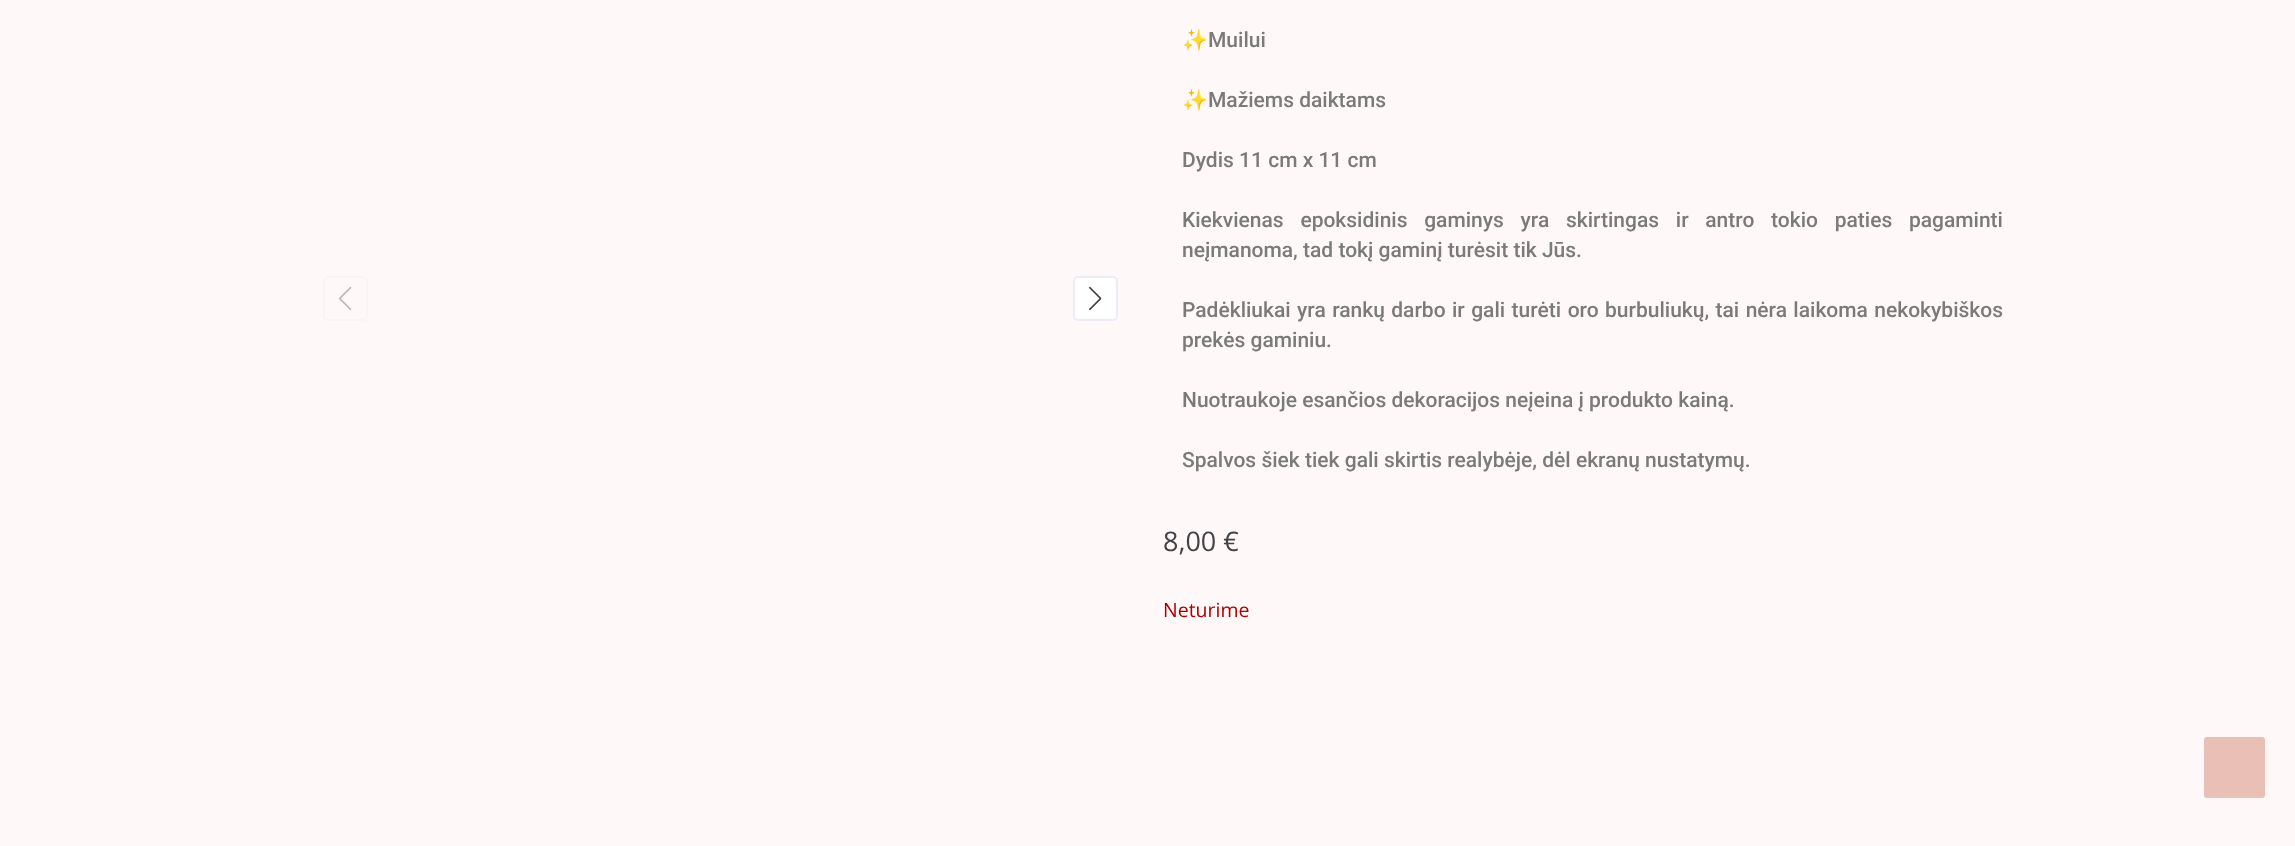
async function draw(canvas) {
	canvas.width = 2295;
	canvas.height = 846;
	const c = canvas.getContext('2d');
	c.miterLimit = 4;
	c.fontKerning = 'normal';
	async function loadImage(src) {
		const img = new Image();
		img.src = src;
		await img.decode();
		return img;
	}

	c.fillStyle = '#fff8f8';
	c.fillRect(0, 0, 2295, 846);
	c.beginPath();
	c.roundRect(324, 277, 43, 43, 4);
	c.strokeStyle = '#f9f4f7';
	c.lineWidth = 2;
	c.stroke();
	c.drawImage(await loadImage('img1.png'), 339, 286, 13, 25);
	c.fillStyle = '#fff';
	c.beginPath();
	c.roundRect(1074, 277, 43, 43, 4);
	c.fill();
	c.strokeStyle = '#edecf6';
	c.stroke();
	c.drawImage(await loadImage('img2.png'), 1089, 286, 13, 25);
	c.font = '21px Noto Color Emoji';
	c.fillStyle = '#7a7a7a';
	c.fillText('✨', 1182, 47);
	c.font = '500 21px Roboto';
	c.fillText('Muilui', 1208, 47);
	c.font = '21px Noto Color Emoji';
	c.fillText('✨', 1182, 107);
	c.font = '500 21px Roboto';
	c.fillText('Mažiems daiktams', 1208, 107);
	c.fillText('Dydis 11 cm x 11 cm', 1182, 167);
	c.wordSpacing = '11.5px';
	c.fillText('Kiekvienas epoksidinis gaminys yra skirtingas ir antro tokio paties pagaminti', 1182, 227);
	c.wordSpacing = '0px';
	c.fillText('neįmanoma, tad tokį gaminį turėsit tik Jūs.', 1182, 257);
	c.wordSpacing = '1.2px';
	c.fillText('Padėkliukai yra rankų darbo ir gali turėti oro burbuliukų, tai nėra laikoma nekokybiškos', 1182, 317);
	c.wordSpacing = '0px';
	for (const [text, x, y] of [
		['prekės gaminiu.', 1182, 347],
		['Nuotraukoje esančios dekoracijos neįeina į produkto kainą.', 1182, 407],
		['Spalvos šiek tiek gali skirtis realybėje, dėl ekranų nustatymų.', 1182, 467],
	]) {
		c.fillText(text, x, y);
	}
	c.font = '27px Open Sans';
	c.fillStyle = '#434347';
	c.fillText('8,00 €', 1163, 551);
	c.font = '19.5px Open Sans';
	c.fillStyle = '#a00';
	c.fillText('Neturime', 1163, 617);
	c.fillStyle = '#eabfb5';
	c.beginPath();
	c.roundRect(2204, 737, 61, 61, 3);
	c.fill();
}

draw(document.querySelector('canvas'));
